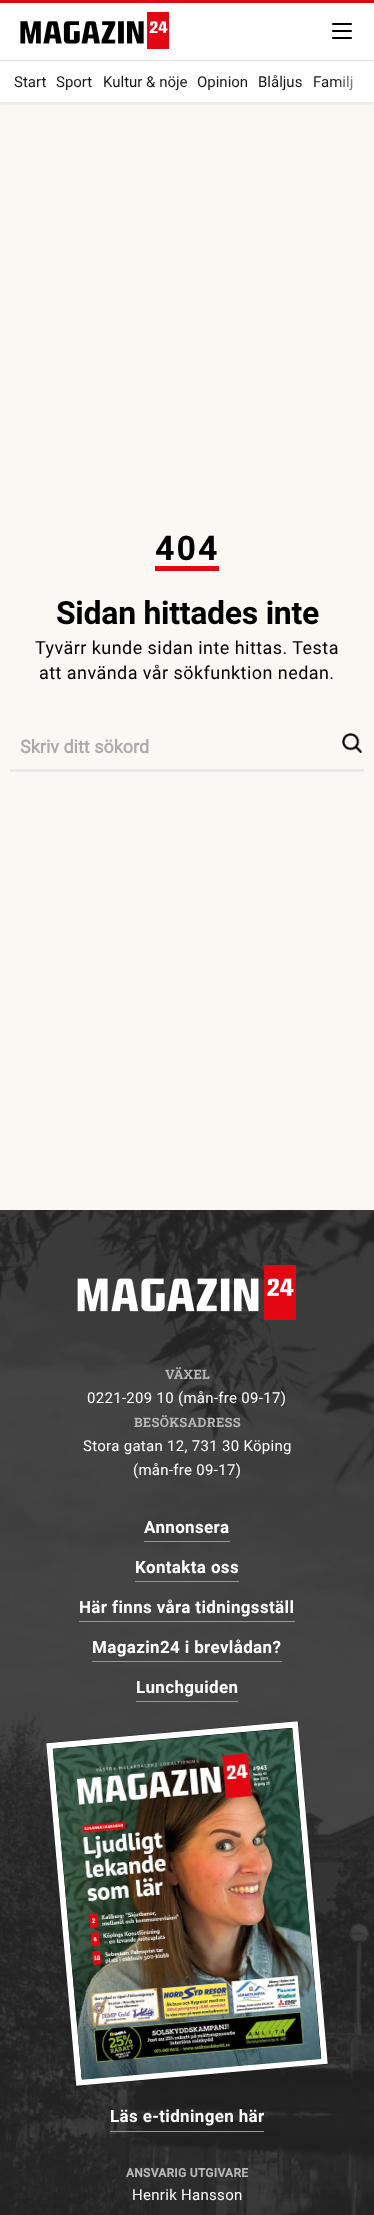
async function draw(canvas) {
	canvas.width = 374;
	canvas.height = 2215;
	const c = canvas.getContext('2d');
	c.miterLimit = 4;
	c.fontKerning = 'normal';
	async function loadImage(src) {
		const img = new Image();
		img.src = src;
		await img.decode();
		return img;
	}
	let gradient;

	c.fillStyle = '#fff';
	c.fillRect(0, 0, 374, 2215);
	c.fillStyle = '#f9f8f2';
	c.fillRect(0, 102, 374, 1108);
	c.save();
	c.beginPath();
	c.rect(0, 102, 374, 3);
	c.clip();
	c.fillStyle = '#0000000d';
	c.filter = 'blur(1.5px)';
	c.beginPath();
	c.rect(0, 3, 374, 102);
	c.fill();
	c.filter = 'none';
	c.restore();
	c.fillStyle = '#e30613';
	c.fillRect(0, 0, 374, 3);
	c.drawImage(await loadImage('img1.png'), 20, 12, 149, 37);
	c.fillStyle = '#000';
	c.beginPath();
	c.roundRect(332, 23, 20, 2, 1);
	c.fill();
	c.beginPath();
	c.roundRect(332, 30, 20, 2, 1);
	c.fill();
	c.beginPath();
	c.roundRect(332, 37, 20, 2, 1);
	c.fill();
	c.fillStyle = '#e3e2dc';
	c.fillRect(0, 60, 374, 1);
	c.font = '15px Roboto';
	c.fillStyle = '#191919';
	for (const [text, x, y] of [
		['Start', 14, 87],
		['Sport', 56, 87],
		['Kultur & nöje', 103, 87],
		['Opinion', 197, 87],
		['Blåljus', 258, 87],
		['Familj', 313, 87],
	]) {
		c.fillText(text, x, y);
	}
	gradient = c.createLinearGradient(334, 82, 374, 82);
	gradient.addColorStop(0, '#ffffff00');
	gradient.addColorStop(1, '#fff');
	c.fillStyle = gradient;
	c.fillRect(335, 75, 17, 16);
	c.fillStyle = '#e30613';
	c.fillRect(155, 566, 64, 5);
	c.letterSpacing = '2px';
	c.font = 'bold 34px Roboto';
	c.fillStyle = '#000';
	c.fillText('404', 155, 560);
	c.letterSpacing = '-0.3px';
	c.font = 'bold 32px Roboto';
	c.fillText('Sidan hittades inte', 56, 624);
	c.letterSpacing = '0.45px';
	c.font = '18px Roboto';
	c.fillText('Tyvärr kunde sidan inte hittas. Testa', 35, 654);
	c.fillText('att använda vår sökfunktion nedan.', 39, 679);
	c.fillStyle = '#eaeaea';
	c.fillRect(10, 769, 354, 3);
	c.letterSpacing = '0px';
	c.font = 'bold 18px "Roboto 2"';
	c.fillStyle = '#ababab';
	c.fillText('Skriv ditt sökord', 20, 753);
	c.drawImage(await loadImage('img2.png'), 342, 733, 20, 20);
	c.drawImage(await loadImage('img3.png'), 0, 1210, 374, 1005);
	c.drawImage(await loadImage('img4.png'), 77, 1265, 219, 55);
	c.letterSpacing = '0.3px';
	c.font = 'bold 13px Roboto Slab';
	c.fillStyle = '#b8b8b8';
	c.fillText('VÄXEL', 165, 1379);
	c.font = '15px Roboto';
	c.fillStyle = '#fff';
	c.fillText('0221-209 10 (mån-fre 09-17)', 87, 1403);
	c.font = 'bold 13px Roboto Slab';
	c.fillStyle = '#b8b8b8';
	c.fillText('BESÖKSADRESS', 134, 1427);
	c.font = '15px Roboto';
	c.fillStyle = '#fff';
	c.fillText('Stora gatan 12, 731 30 Köping', 83, 1451);
	c.fillText('(mån-fre 09-17)', 133, 1475);
	c.letterSpacing = '0.35px';
	c.font = 'bold 17px Roboto';
	c.fillText('Annonsera', 144, 1533);
	c.fillStyle = '#979797';
	c.fillRect(144, 1541, 86, 1);
	c.fillStyle = '#fff';
	c.fillText('Kontakta oss', 135, 1573);
	c.fillStyle = '#979797';
	c.fillRect(135, 1581, 104, 1);
	c.fillStyle = '#fff';
	c.fillText('Här finns våra tidningsställ', 79, 1613);
	c.fillStyle = '#979797';
	c.fillRect(79, 1621, 216, 1);
	c.fillStyle = '#fff';
	c.fillText('Magazin24 i brevlådan?', 92, 1653);
	c.fillStyle = '#979797';
	c.fillRect(92, 1661, 190, 1);
	c.fillStyle = '#fff';
	c.fillText('Lunchguiden', 136, 1693);
	c.fillStyle = '#979797';
	c.fillRect(136, 1701, 102, 1);
	c.fillStyle = '#000';
	c.beginPath();
	c.moveTo(46, 1743);
	c.lineTo(298, 1721);
	c.lineTo(328, 2064);
	c.lineTo(76, 2086);
	c.closePath();
	c.fill();
	c.beginPath();
	c.moveTo(49.5, 1746);
	c.lineTo(295, 1724.5);
	c.lineTo(324.5, 2061);
	c.lineTo(79, 2082.5);
	c.closePath();
	c.strokeStyle = '#fff';
	c.lineWidth = 6;
	c.stroke();
	c.drawImage(await loadImage('img5.png'), 53, 1728, 268, 352);
	c.fillStyle = '#979797';
	c.fillRect(110, 2131, 154, 1);
	c.fillStyle = '#fff';
	c.fillText('Läs e-tidningen här', 110, 2122);
	c.letterSpacing = '0.3px';
	c.font = 'bold 12px "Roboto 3"';
	c.fillStyle = '#b8b8b8';
	c.fillText('ANSVARIG UTGIVARE', 126, 2177);
	c.font = '15px Roboto';
	c.fillStyle = '#fff';
	c.fillText('Henrik Hansson', 132, 2200);
}

draw(document.querySelector('canvas'));
